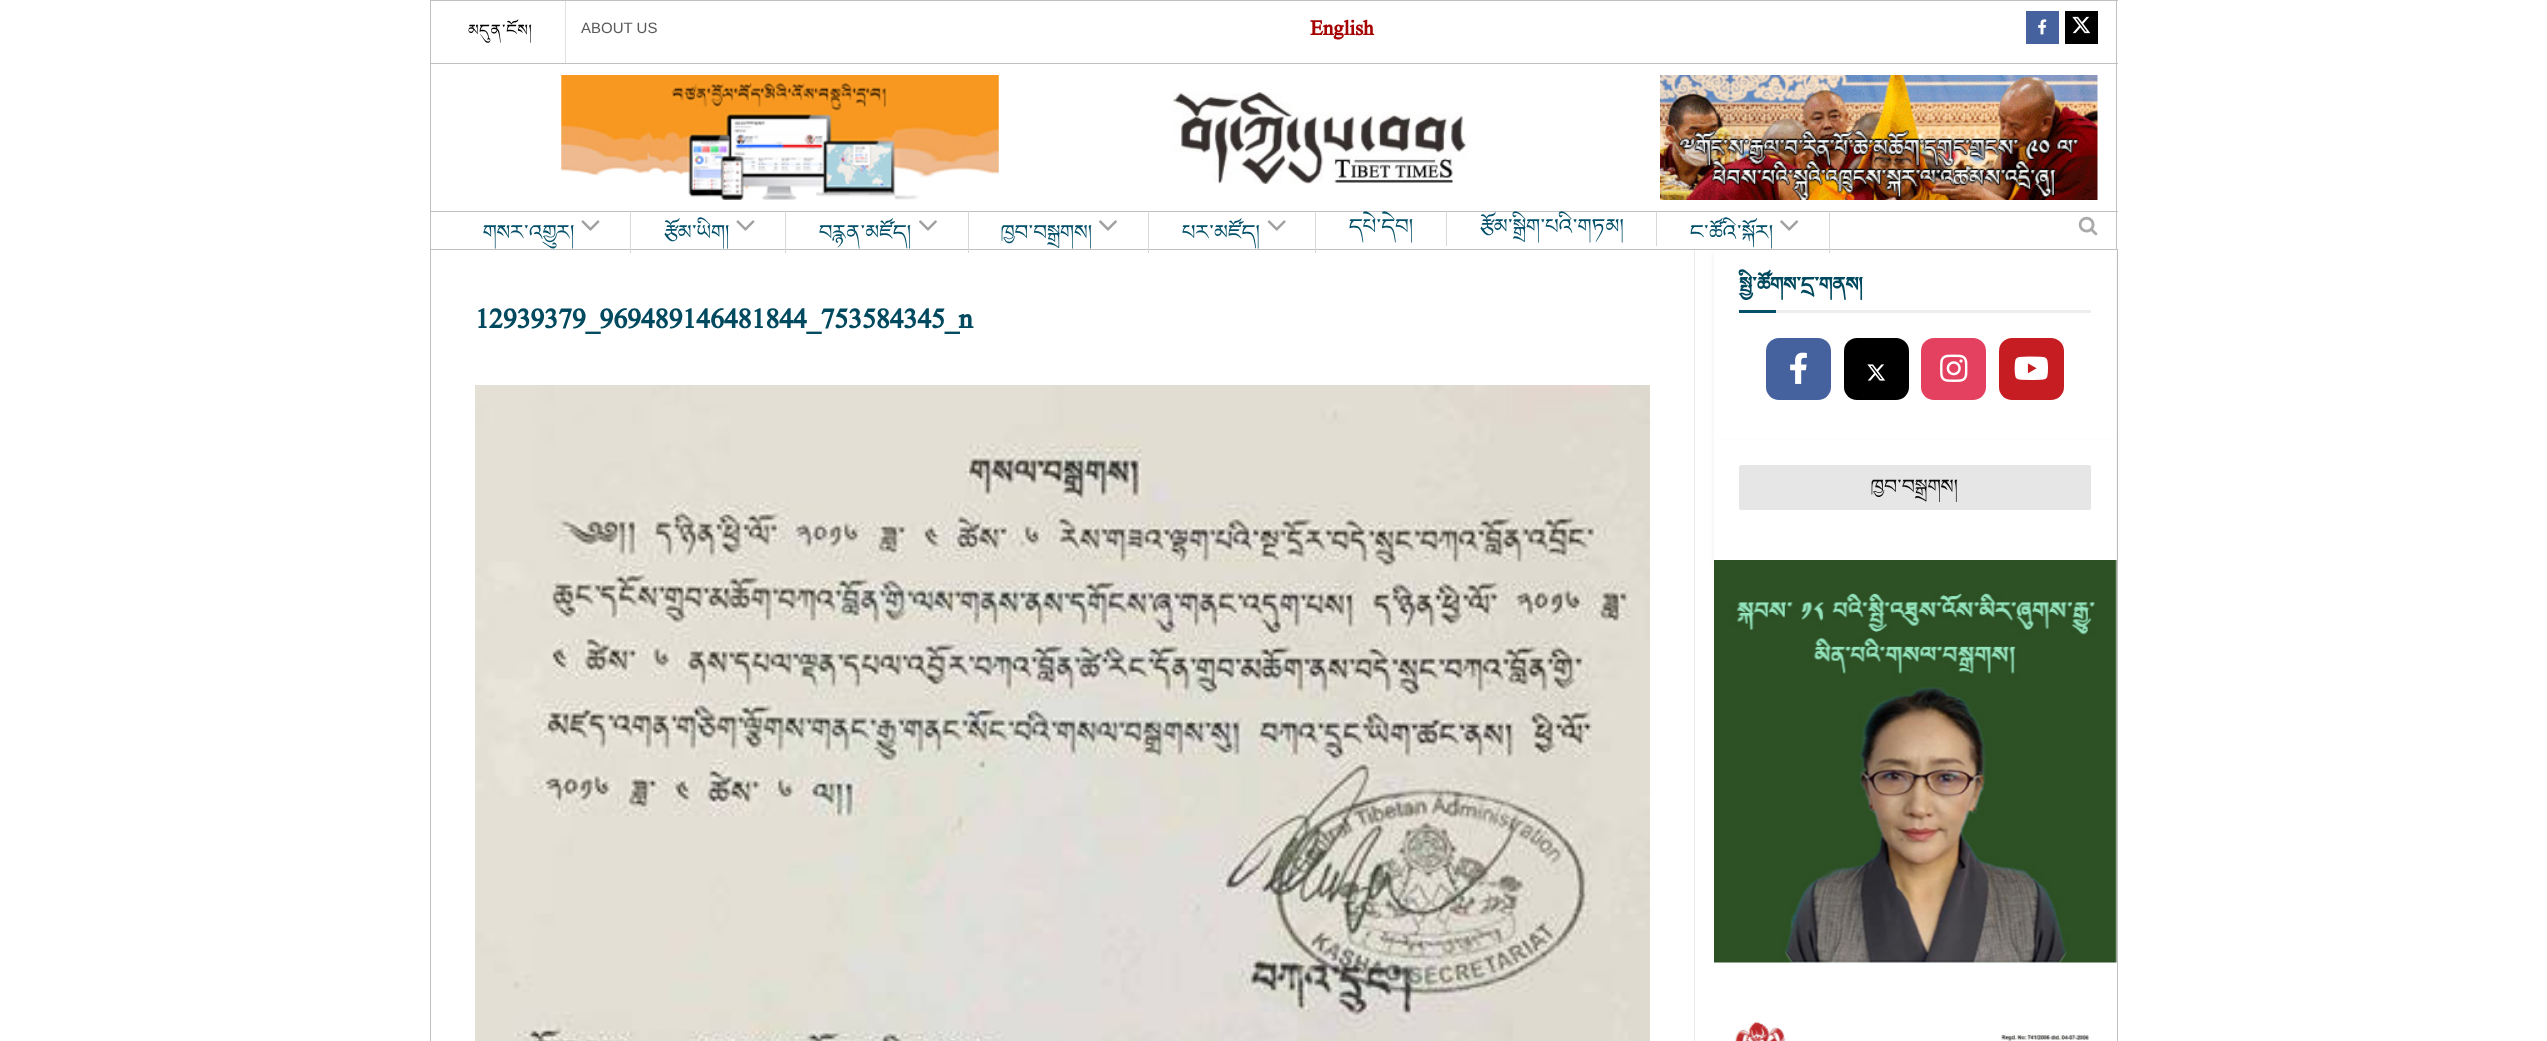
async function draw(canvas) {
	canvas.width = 2547;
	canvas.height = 1041;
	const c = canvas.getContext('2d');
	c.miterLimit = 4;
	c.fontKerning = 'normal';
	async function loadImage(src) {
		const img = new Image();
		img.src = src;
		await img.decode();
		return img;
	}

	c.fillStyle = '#fff';
	c.fillRect(0, 0, 2547, 1041);
	for (const [x, y, w, h, color] of [
		[430, 0, 1688, 1, '#c0c0c0'],
		[2116, 0, 1, 63, '#c0c0c0'],
		[430, 0, 1, 63, '#c0c0c0'],
		[565, 1, 1, 62, '#e0e0e0'],
	]) {
		c.fillStyle = color;
		c.fillRect(x, y, w, h);
	}
	c.letterSpacing = '0.6px';
	c.font = '25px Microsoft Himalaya';
	c.fillStyle = '#000';
	c.fillText('མདུན་ངོས།', 468, 33);
	c.letterSpacing = '0px';
	c.font = '15px Liberation Sans';
	c.fillStyle = '#595959';
	c.fillText('ABOUT US', 581, 33);
	c.font = 'bold 31px Microsoft Himalaya';
	c.fillStyle = '#a60202';
	c.fillText('English', 1310, 35);
	c.fillStyle = '#45629f';
	c.fillRect(2026, 11, 33, 33);
	c.drawImage(await loadImage('img1.png'), 2038, 19, 9, 16);
	c.fillStyle = '#000';
	c.fillRect(2065, 11, 33, 33);
	c.drawImage(await loadImage('img2.png'), 2072, 16, 19, 18);
	c.fillStyle = '#c0c0c0';
	c.fillRect(430, 211, 1688, 1);
	c.strokeStyle = '#c0c0c0';
	c.strokeRect(430.5, 249.5, 1687, 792);
	for (const [x, y, w, h, color] of [
		[630, 209, 1, 44, '#d8d8d8'],
		[785, 209, 1, 44, '#d8d8d8'],
		[968, 209, 1, 44, '#d8d8d8'],
		[1148, 209, 1, 44, '#d8d8d8'],
		[1315, 209, 1, 44, '#d8d8d8'],
		[1446, 209, 1, 37, '#d8d8d8'],
		[1656, 209, 1, 37, '#d8d8d8'],
	]) {
		c.fillStyle = color;
		c.fillRect(x, y, w, h);
	}
	c.save();
	c.beginPath();
	c.moveTo(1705, 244);
	c.lineTo(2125, 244);
	c.lineTo(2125, 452);
	c.lineTo(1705, 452);
	c.closePath();
	c.moveTo(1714, 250);
	c.lineTo(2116, 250);
	c.lineTo(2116, 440);
	c.lineTo(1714, 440);
	c.closePath();
	c.clip('evenodd');
	c.fillStyle = '#00000014';
	c.filter = 'blur(2.5px)';
	c.beginPath();
	c.rect(1714, 253, 402, 190);
	c.fill();
	c.filter = 'none';
	c.restore();
	for (const [x, y, w, h, color] of [
		[1829, 209, 1, 44, '#d8d8d8'],
		[630, 209, 1200, 2, '#fff'],
		[430, 63, 1688, 1, '#c0c0c0'],
		[2116, 63, 1, 148, '#c0c0c0'],
		[430, 63, 1, 148, '#c0c0c0'],
	]) {
		c.fillStyle = color;
		c.fillRect(x, y, w, h);
	}
	c.drawImage(await loadImage('img3.png'), 561, 75, 438, 125);
	c.drawImage(await loadImage('img4.png'), 1172, 92, 299, 92);
	c.drawImage(await loadImage('img5.png'), 1660, 75, 438, 125);
	c.fillRect(2116, 211, 1, 38);
	c.fillRect(430, 211, 1, 38);
	c.font = '32.5px Microsoft Himalaya';
	c.fillStyle = '#024f69';
	c.fillText('གསར་འགྱུར།', 483, 236);
	c.drawImage(await loadImage('img6.png'), 581, 220, 19, 11);
	c.fillText('རྩོམ་ཡིག།', 664, 236);
	c.drawImage(await loadImage('img6.png'), 736, 220, 19, 11);
	c.fillText('བརྙན་མཛོད།', 819, 236);
	c.drawImage(await loadImage('img7.png'), 919, 220, 18, 11);
	c.fillText('ཁྱབ་བསྒྲགས།', 1001, 236);
	c.drawImage(await loadImage('img7.png'), 1099, 220, 18, 11);
	c.fillText('པར་མཛོད།', 1182, 236);
	c.drawImage(await loadImage('img8.png'), 1267, 220, 19, 11);
	for (const [text, x, y] of [
		['དཔེ་དེབ།', 1349, 230],
		['རྩོམ་སྒྲིག་པའི་གཏམ།', 1480, 230],
		['ང་ཚོའི་སྐོར།', 1690, 236],
	]) {
		c.fillText(text, x, y);
	}
	c.drawImage(await loadImage('img9.png'), 1780, 220, 19, 11);
	c.drawImage(await loadImage('img10.png'), 2078, 216, 20, 20);
	c.fillStyle = '#e8e8e8';
	c.fillRect(1694, 250, 1, 791);
	c.font = 'bold 41.25px Microsoft Himalaya';
	c.fillStyle = '#00495e';
	c.fillText('12939379_969489146481844_753584345_n', 475, 328);
	c.drawImage(await loadImage('img11.png'), 475, 385, 1175, 656);
	c.fillStyle = '#eee';
	c.fillRect(1776, 310, 315, 3);
	c.font = 'bold 31px Microsoft Himalaya';
	c.fillStyle = '#00495e';
	c.fillText('སྤྱི་ཚོགས་དྲ་གནས།', 1739, 288);
	c.fillStyle = '#024f69';
	c.fillRect(1739, 310, 37, 3);
	c.fillStyle = '#45629f';
	c.beginPath();
	c.roundRect(1766, 338, 65, 62, 13);
	c.fill();
	c.drawImage(await loadImage('img12.png'), 1790, 352, 17, 32);
	c.fillStyle = '#000';
	c.beginPath();
	c.roundRect(1844, 338, 65, 62, 13);
	c.fill();
	c.drawImage(await loadImage('img13.png'), 1867, 364, 19, 17);
	c.fillStyle = '#e4405f';
	c.beginPath();
	c.roundRect(1921, 338, 65, 62, 13);
	c.fill();
	c.drawImage(await loadImage('img14.png'), 1940, 354, 28, 28);
	c.fillStyle = '#c61d23';
	c.beginPath();
	c.roundRect(1999, 338, 65, 62, 13);
	c.fill();
	c.drawImage(await loadImage('img15.png'), 2014, 356, 34, 24);
	c.fillStyle = '#00000014';
	c.filter = 'blur(2.5px)';
	c.beginPath();
	c.rect(1714, 443, 402, 120);
	c.fill();
	c.filter = 'none';
	c.fillStyle = '#fff';
	c.fillRect(1714, 440, 402, 120);
	c.fillStyle = '#e6e6e6';
	c.beginPath();
	c.roundRect(1739, 465, 352, 45, 2.5);
	c.fill();
	c.font = '31px Microsoft Himalaya';
	c.fillStyle = '#090909';
	c.fillText('ཁྱབ་བསྒྲགས།', 1871, 490);
	c.drawImage(await loadImage('img16.png'), 1714, 560, 403, 403);
	c.drawImage(await loadImage('img17.png'), 1735, 1020, 355, 21);
}

draw(document.querySelector('canvas'));
